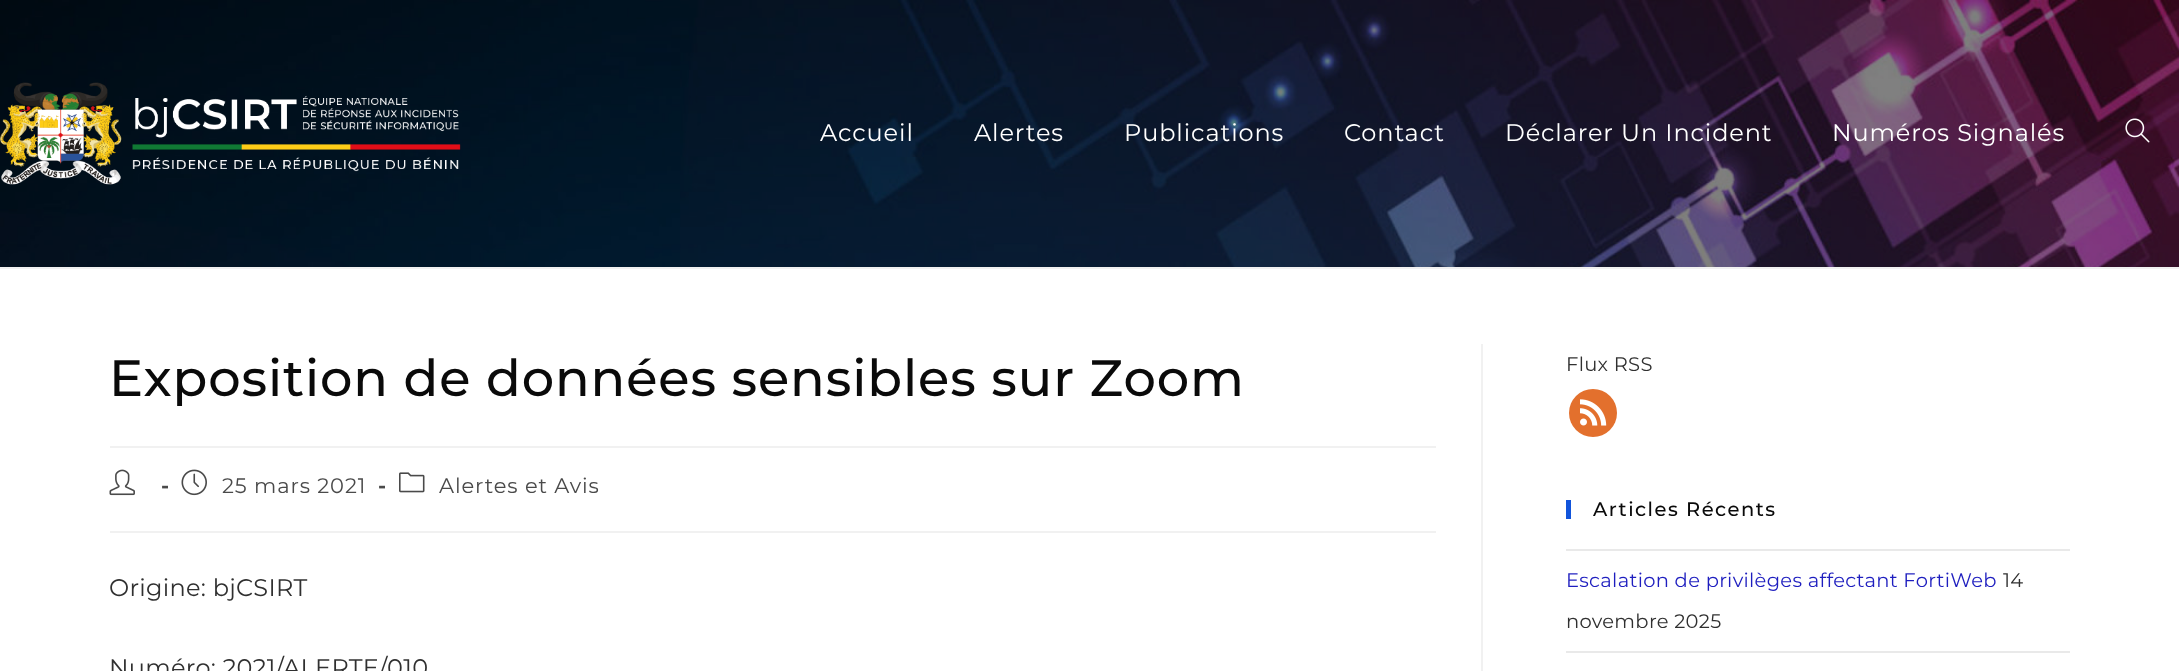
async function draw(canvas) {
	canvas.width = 2179;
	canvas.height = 671;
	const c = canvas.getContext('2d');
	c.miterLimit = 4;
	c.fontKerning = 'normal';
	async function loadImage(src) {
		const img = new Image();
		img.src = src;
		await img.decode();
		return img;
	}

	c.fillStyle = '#fff';
	c.fillRect(0, 0, 2179, 671);
	c.drawImage(await loadImage('img1.png'), 0, 0, 2179, 267);
	c.fillStyle = '#f1f1f1';
	c.fillRect(0, 267, 2179, 2);
	c.drawImage(await loadImage('img2.png'), 0, 82, 461, 103);
	c.letterSpacing = '0.9px';
	c.font = '24px Montserrat';
	c.fillStyle = '#fff';
	for (const [text, x, y] of [
		['Accueil', 820, 141],
		['Alertes', 974, 141],
		['Publications', 1124, 141],
		['Contact', 1344, 141],
		['Déclarer Un Incident', 1505, 141],
		['Numéros Signalés', 1832, 141],
	]) {
		c.fillText(text, x, y);
	}
	c.drawImage(await loadImage('img3.png'), 2125, 118, 25, 25);
	c.fillStyle = '#f1f1f1';
	c.fillRect(1481, 344, 2, 327);
	c.fillRect(110, 446, 1326, 2);
	c.font = '500 51px Montserrat';
	c.fillStyle = '#0a0a0a';
	c.fillText('Exposition de données sensibles sur Zoom', 109, 396);
	c.fillStyle = '#f1f1f1';
	c.fillRect(110, 531, 1326, 2);
	c.drawImage(await loadImage('img4.png'), 109, 469, 26, 27);
	c.font = 'bold 21px Montserrat';
	c.fillStyle = '#4a4a4a';
	c.fillText('-', 161, 493);
	c.drawImage(await loadImage('img5.png'), 181, 469, 26, 27);
	c.font = '21px Montserrat';
	c.fillText('25 mars 2021', 222, 493);
	c.font = 'bold 21px Montserrat';
	c.fillText('-', 378, 493);
	c.drawImage(await loadImage('img6.png'), 399, 472, 26, 21);
	c.font = '21px Montserrat';
	c.fillText('Alertes et Avis', 439, 493);
	c.letterSpacing = '0.3px';
	c.font = '24px Montserrat';
	c.fillStyle = '#303030';
	c.fillText('Origine: bjCSIRT', 109, 596);
	c.fillText('Numéro: 2021/ALERTE/010', 109, 676);
	c.font = '19.5px Montserrat';
	c.fillText('Flux RSS', 1566, 371);
	c.fillStyle = '#e3702d';
	c.beginPath();
	c.arc(1593, 413, 24, 0, 2 * Math.PI);
	c.fill();
	c.drawImage(await loadImage('img7.png'), 1580, 399, 27, 27);
	c.fillStyle = '#1154db';
	c.fillRect(1566, 500, 5, 19);
	c.letterSpacing = '1.5px';
	c.font = '500 19.5px Montserrat';
	c.fillStyle = '#0a0a0a';
	c.fillText('Articles Récents', 1593, 516);
	c.fillStyle = '#e9e9e9';
	c.fillRect(1566, 549, 504, 2);
	c.fillRect(1566, 651, 504, 2);
	c.letterSpacing = '0.3px';
	c.font = '19.5px Montserrat';
	c.fillStyle = '#1e1ebf';
	c.fillText('Escalation de privilèges affectant FortiWeb', 1566, 587);
	c.fillStyle = '#303030';
	c.fillText('14', 2003, 587);
	c.fillText('novembre 2025', 1566, 628);
}

draw(document.querySelector('canvas'));
